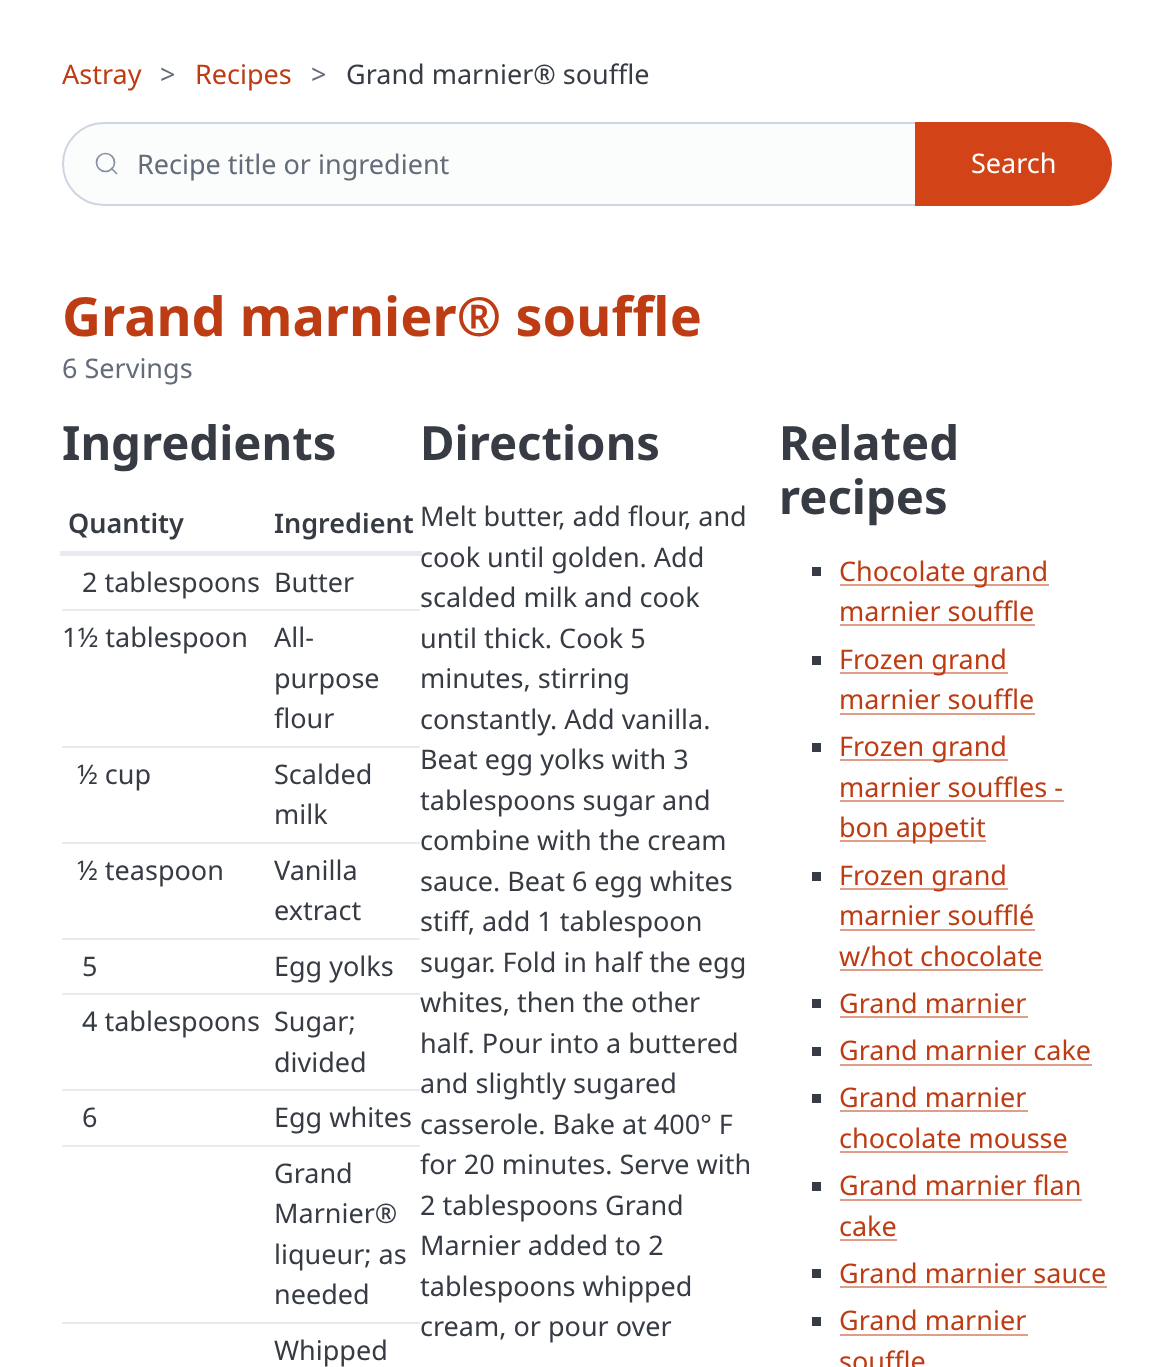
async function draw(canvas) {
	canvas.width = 1172;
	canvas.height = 1367;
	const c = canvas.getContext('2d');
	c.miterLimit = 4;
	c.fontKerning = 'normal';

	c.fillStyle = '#fff';
	c.fillRect(0, 0, 1172, 1367);
	c.font = '27px Noto Sans';
	c.fillStyle = '#bd3c13';
	c.fillText('Astray', 62, 84);
	c.fillStyle = '#646b79';
	c.fillText('>', 160, 84);
	c.fillStyle = '#bd3c13';
	c.fillText('Recipes', 195, 84);
	c.fillStyle = '#646b79';
	c.fillText('>', 311, 84);
	c.fillStyle = '#373c44';
	c.fillText('Grand marnier® souffle', 346, 84);
	c.fillStyle = '#fbfcfc';
	c.beginPath();
	c.roundRect(62, 122, 855, 84, [42, 0, 0, 42]);
	c.fill();
	c.beginPath();
	c.arc(105.5, 162.5, 9, 0, 2 * Math.PI);
	c.strokeStyle = '#8891a4';
	c.lineWidth = 1.7;
	c.stroke();
	c.beginPath();
	c.moveTo(116.5, 173.5);
	c.lineTo(111.5, 168.5);
	c.lineCap = 'round';
	c.lineJoin = 'round';
	c.stroke();
	c.beginPath();
	c.roundRect(63, 123, 853, 82, [41, 0, 0, 41]);
	c.strokeStyle = '#cfd5e2';
	c.lineWidth = 2;
	c.lineJoin = 'miter';
	c.stroke();
	c.fillStyle = '#646b79';
	c.fillText('Recipe title or ingredient', 137, 174);
	c.fillStyle = '#d24317';
	c.beginPath();
	c.roundRect(916, 123, 195, 82, [0, 41, 41, 0]);
	c.fill();
	c.strokeStyle = '#d24317';
	c.stroke();
	c.fillStyle = '#fff';
	c.fillText('Search', 971, 173);
	c.font = 'bold 54px Noto Sans';
	c.fillStyle = '#bd3c13';
	c.fillText('Grand marnier® souffle', 62, 336);
	c.font = '27px Noto Sans';
	c.fillStyle = '#646b79';
	c.fillText('6 Servings', 62, 378);
	c.font = 'bold 47.25px Noto Sans';
	c.fillStyle = '#373c44';
	c.fillText('Ingredients', 62, 460);
	c.font = '600 27px Noto Sans';
	c.fillText('Quantity', 68, 533);
	c.fillStyle = '#e7eaf0';
	c.fillRect(60, 551, 362, 5);
	c.fillStyle = '#373c44';
	c.fillText('Ingredient', 274, 533);
	c.font = '27px Noto Sans';
	c.fillText('2 tablespoons', 82, 592);
	c.fillStyle = '#e7eaf0';
	c.fillRect(62, 609, 358, 2);
	c.fillStyle = '#373c44';
	c.fillText('Butter', 274, 592);
	c.fillText('1½ tablespoon', 62, 647);
	c.fillStyle = '#e7eaf0';
	c.fillRect(62, 746, 358, 2);
	c.fillStyle = '#373c44';
	for (const [text, x, y] of [
		['All-', 274, 647],
		['purpose', 274, 688],
		['flour', 274, 728],
		['½ cup', 77, 784],
	]) {
		c.fillText(text, x, y);
	}
	c.fillStyle = '#e7eaf0';
	c.fillRect(62, 842, 358, 2);
	c.fillStyle = '#373c44';
	for (const [text, x, y] of [
		['Scalded', 274, 784],
		['milk', 274, 824],
		['½ teaspoon', 77, 880],
	]) {
		c.fillText(text, x, y);
	}
	c.fillStyle = '#e7eaf0';
	c.fillRect(62, 938, 358, 2);
	c.fillStyle = '#373c44';
	for (const [text, x, y] of [
		['Vanilla', 274, 880],
		['extract', 274, 920],
		['5', 82, 976],
	]) {
		c.fillText(text, x, y);
	}
	c.fillStyle = '#e7eaf0';
	c.fillRect(62, 993, 358, 2);
	c.fillStyle = '#373c44';
	c.fillText('Egg yolks', 274, 976);
	c.fillText('4 tablespoons', 82, 1031);
	c.fillStyle = '#e7eaf0';
	c.fillRect(62, 1089, 358, 2);
	c.fillStyle = '#373c44';
	for (const [text, x, y] of [
		['Sugar;', 274, 1031],
		['divided', 274, 1072],
		['6', 82, 1127],
	]) {
		c.fillText(text, x, y);
	}
	c.fillStyle = '#e7eaf0';
	c.fillRect(62, 1145, 358, 2);
	c.fillStyle = '#373c44';
	c.fillText('Egg whites', 274, 1127);
	c.fillStyle = '#e7eaf0';
	c.fillRect(62, 1322, 358, 2);
	c.fillStyle = '#373c44';
	for (const [text, x, y] of [
		['Grand', 274, 1183],
		['Marnier®', 274, 1223],
		['liqueur; as', 274, 1264],
		['needed', 274, 1304],
		['Whipped', 274, 1360],
	]) {
		c.fillText(text, x, y);
	}
	c.font = 'bold 47.25px Noto Sans';
	c.fillText('Directions', 420, 460);
	c.font = '27px Noto Sans';
	for (const [text, x, y] of [
		['Melt butter, add flour, and', 420, 526],
		['cook until golden. Add', 420, 567],
		['scalded milk and cook', 420, 607],
		['until thick. Cook 5', 420, 648],
		['minutes, stirring', 420, 688],
		['constantly. Add vanilla.', 420, 729],
		['Beat egg yolks with 3', 420, 769],
		['tablespoons sugar and', 420, 810],
		['combine with the cream', 420, 850],
		['sauce. Beat 6 egg whites', 420, 891],
		['stiff, add 1 tablespoon', 420, 931],
		['sugar. Fold in half the egg', 420, 972],
		['whites, then the other', 420, 1012],
		['half. Pour into a buttered', 420, 1053],
		['and slightly sugared', 420, 1093],
		['casserole. Bake at 400° F', 420, 1134],
		['for 20 minutes. Serve with', 420, 1174],
		['2 tablespoons Grand', 420, 1215],
		['Marnier added to 2', 420, 1255],
		['tablespoons whipped', 420, 1296],
		['cream, or pour over', 420, 1336],
	]) {
		c.fillText(text, x, y);
	}
	c.font = 'bold 47.25px Noto Sans';
	c.fillText('Related', 779, 460);
	c.fillText('recipes', 779, 514);
	c.fillRect(812, 567, 9, 9);
	c.fillStyle = '#de9e89';
	c.fillRect(840, 584, 209, 2);
	c.font = '27px Noto Sans';
	c.fillStyle = '#bd3c13';
	c.fillText('Chocolate grand', 839, 581);
	c.fillText('marnier souffle', 839, 621);
	for (const [x, y, w, h, color] of [
		[840, 624, 195, 2, '#de9e89'],
		[812, 656, 9, 9, '#373c44'],
		[840, 672, 168, 2, '#de9e89'],
	]) {
		c.fillStyle = color;
		c.fillRect(x, y, w, h);
	}
	c.fillStyle = '#bd3c13';
	c.fillText('Frozen grand', 839, 669);
	c.fillText('marnier souffle', 839, 709);
	for (const [x, y, w, h, color] of [
		[840, 713, 195, 2, '#de9e89'],
		[812, 743, 9, 9, '#373c44'],
		[840, 759, 168, 2, '#de9e89'],
	]) {
		c.fillStyle = color;
		c.fillRect(x, y, w, h);
	}
	c.fillStyle = '#bd3c13';
	c.fillText('Frozen grand', 839, 756);
	c.fillText('marnier souffles -', 839, 797);
	c.fillStyle = '#de9e89';
	c.fillRect(840, 800, 224, 2);
	c.fillRect(840, 840, 146, 2);
	c.fillStyle = '#bd3c13';
	c.fillText('bon appetit', 839, 837);
	c.fillStyle = '#373c44';
	c.fillRect(812, 872, 9, 9);
	c.fillStyle = '#de9e89';
	c.fillRect(840, 888, 168, 2);
	c.fillStyle = '#bd3c13';
	c.fillText('Frozen grand', 839, 885);
	c.fillText('marnier soufflé', 839, 925);
	c.fillStyle = '#de9e89';
	c.fillRect(840, 929, 195, 2);
	c.fillStyle = '#bd3c13';
	c.fillText('w/hot chocolate', 839, 966);
	c.fillStyle = '#de9e89';
	c.fillRect(840, 969, 203, 2);
	c.fillStyle = '#373c44';
	c.fillRect(812, 999, 9, 9);
	c.fillStyle = '#bd3c13';
	c.fillText('Grand marnier', 839, 1013);
	c.fillStyle = '#de9e89';
	c.fillRect(840, 1016, 188, 2);
	c.fillStyle = '#373c44';
	c.fillRect(812, 1047, 9, 9);
	c.fillStyle = '#bd3c13';
	c.fillText('Grand marnier cake', 839, 1060);
	c.fillStyle = '#de9e89';
	c.fillRect(840, 1064, 252, 2);
	c.fillStyle = '#373c44';
	c.fillRect(812, 1094, 9, 9);
	c.fillStyle = '#bd3c13';
	c.fillText('Grand marnier', 839, 1107);
	c.fillStyle = '#de9e89';
	c.fillRect(840, 1110, 188, 2);
	c.fillStyle = '#bd3c13';
	c.fillText('chocolate mousse', 839, 1148);
	c.fillStyle = '#de9e89';
	c.fillRect(840, 1151, 228, 2);
	c.fillStyle = '#373c44';
	c.fillRect(812, 1182, 9, 9);
	c.fillStyle = '#bd3c13';
	c.fillText('Grand marnier flan', 839, 1195);
	c.fillStyle = '#de9e89';
	c.fillRect(840, 1199, 242, 2);
	c.fillStyle = '#bd3c13';
	c.fillText('cake', 839, 1236);
	c.fillStyle = '#de9e89';
	c.fillRect(840, 1239, 57, 2);
	c.fillStyle = '#373c44';
	c.fillRect(812, 1269, 9, 9);
	c.fillStyle = '#bd3c13';
	c.fillText('Grand marnier sauce', 839, 1283);
	c.fillStyle = '#de9e89';
	c.fillRect(840, 1286, 267, 2);
	c.fillStyle = '#373c44';
	c.fillRect(812, 1317, 9, 9);
	c.fillStyle = '#bd3c13';
	c.fillText('Grand marnier', 839, 1330);
	c.fillStyle = '#de9e89';
	c.fillRect(840, 1334, 188, 2);
	c.fillStyle = '#bd3c13';
	c.fillText('souffle', 839, 1371);
}

draw(document.querySelector('canvas'));
